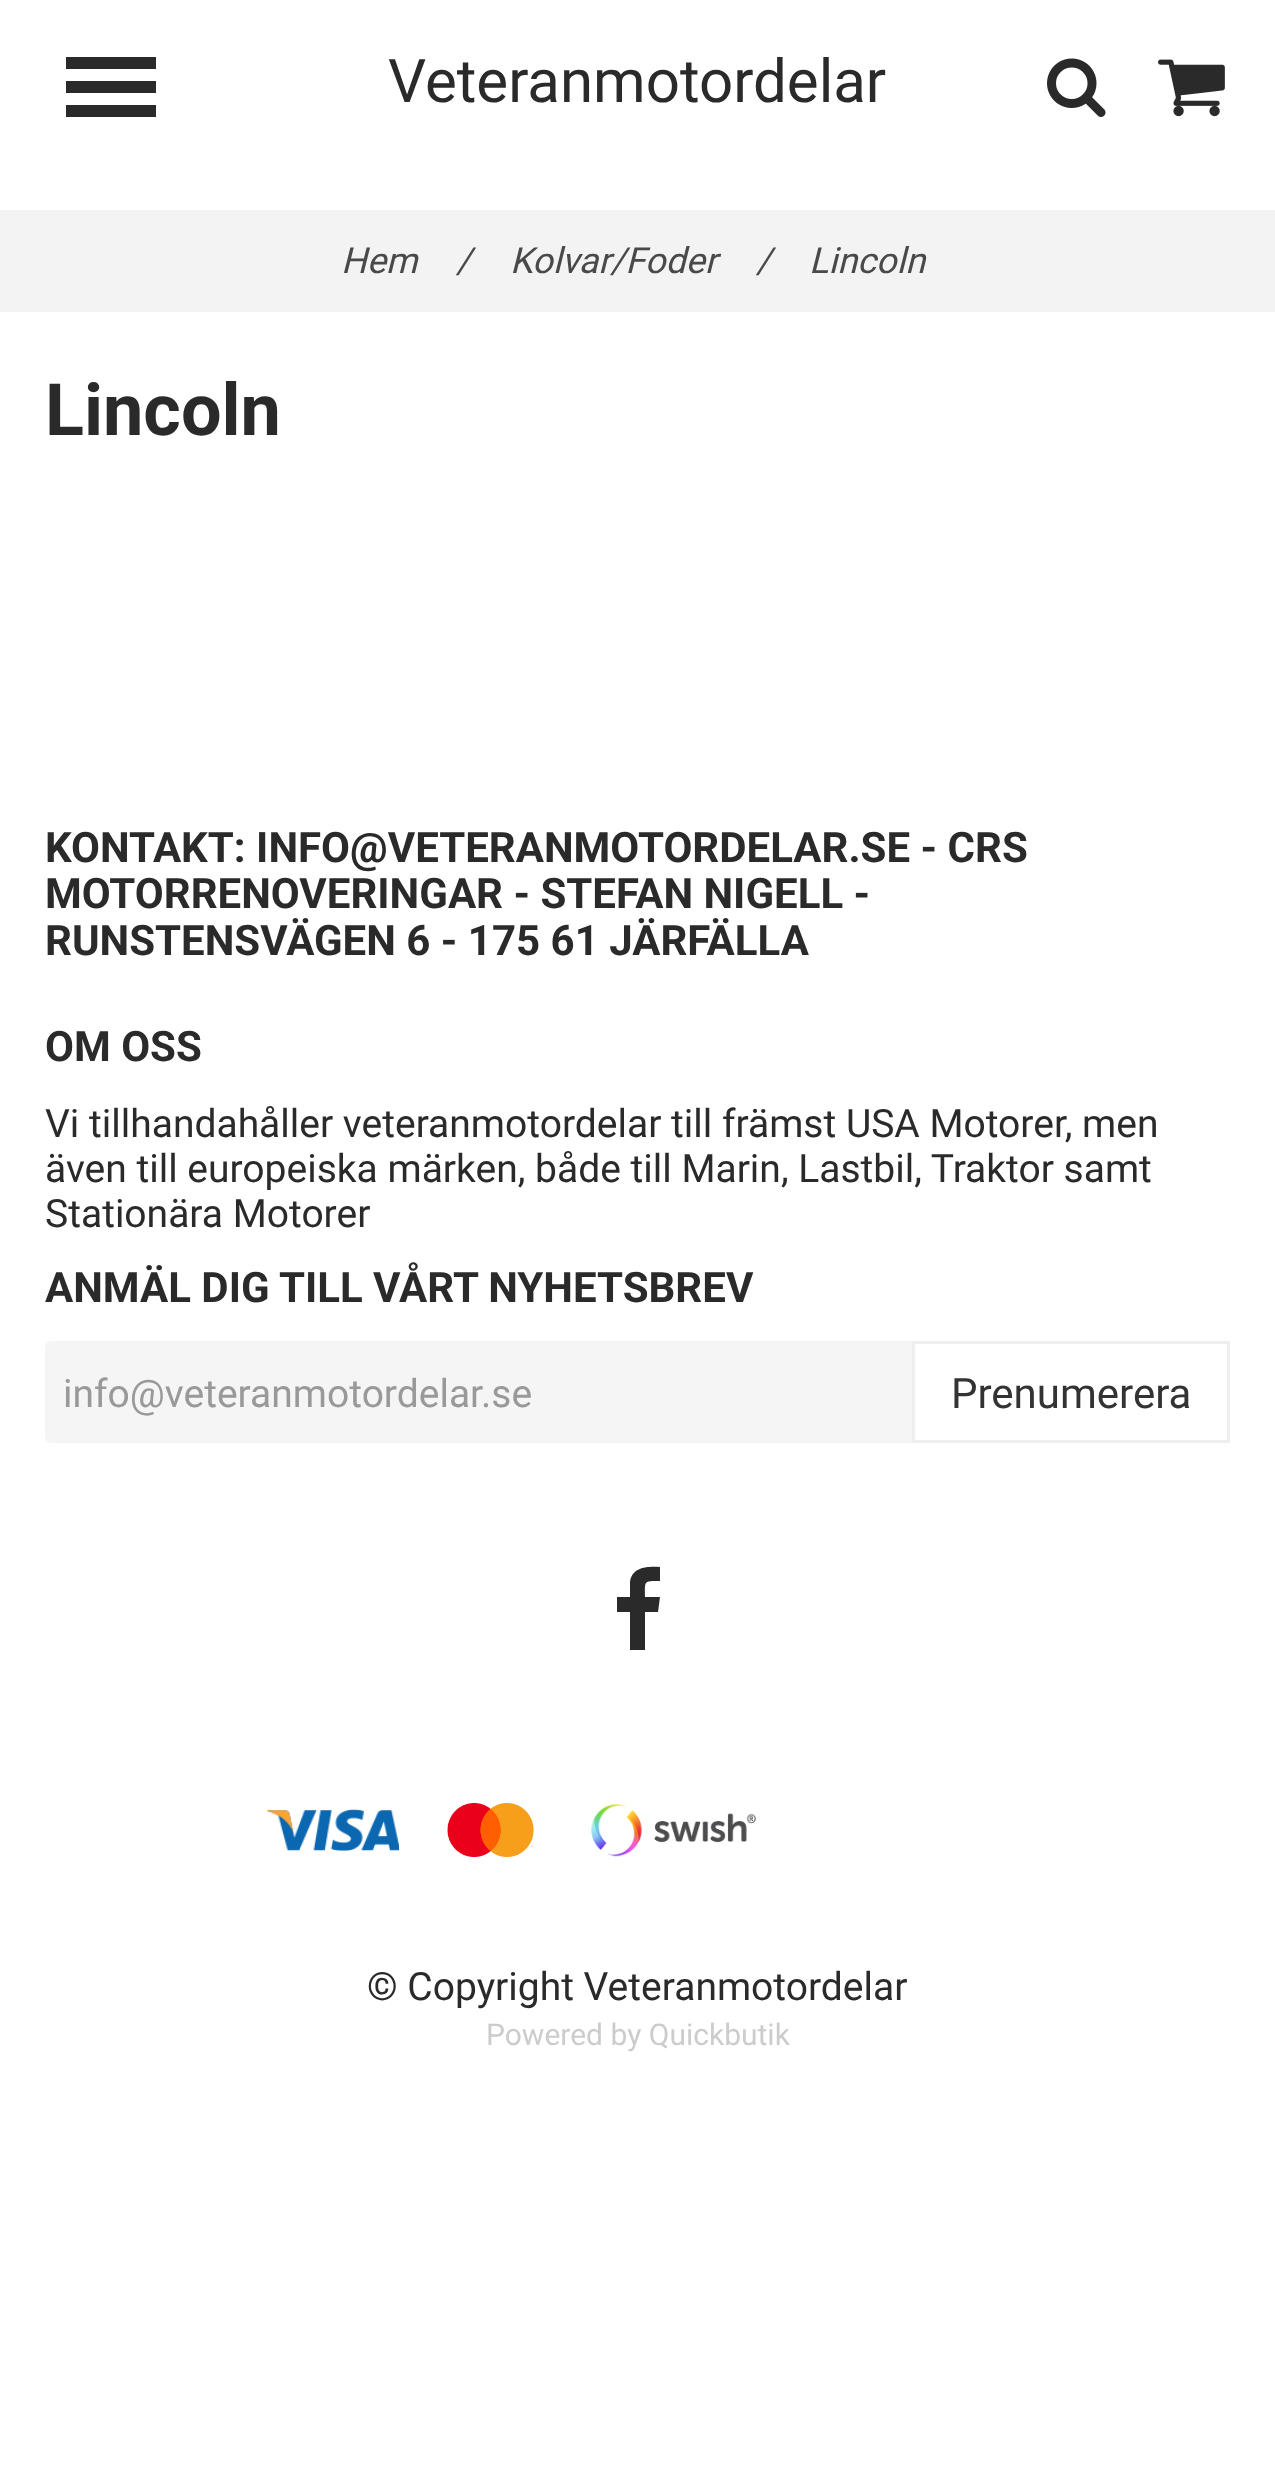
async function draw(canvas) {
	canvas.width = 1275;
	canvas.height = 2487;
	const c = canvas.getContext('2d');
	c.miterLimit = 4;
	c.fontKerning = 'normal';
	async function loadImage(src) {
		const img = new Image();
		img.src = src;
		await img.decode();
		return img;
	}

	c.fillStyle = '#fff';
	c.fillRect(0, 0, 1275, 2487);
	for (const [x, y, w, h, color] of [
		[66, 81, 90, 12, '#2a2a2a'],
		[66, 57, 90, 12, '#2a2a2a'],
		[66, 105, 90, 12, '#2a2a2a'],
	]) {
		c.fillStyle = color;
		c.fillRect(x, y, w, h);
	}
	c.font = '60px Roboto';
	c.fillText('Veteranmotordelar', 388, 102);
	c.drawImage(await loadImage('img1.png'), 1047, 58, 59, 59);
	c.drawImage(await loadImage('img2.png'), 1158, 59, 67, 58);
	c.fillStyle = '#f3f3f3';
	c.fillRect(0, 210, 1275, 102);
	c.font = 'italic 36px Roboto';
	c.fillStyle = '#494949';
	for (const [text, x, y] of [
		['Hem', 341, 273],
		['/', 456, 273],
		['Kolvar/Foder', 510, 273],
		['/', 756, 273],
		['Lincoln', 809, 273],
	]) {
		c.fillText(text, x, y);
	}
	c.font = 'bold 72px Roboto';
	c.fillStyle = '#2a2a2a';
	c.fillText('Lincoln', 45, 435);
	c.font = 'bold 42px Roboto';
	for (const [text, x, y] of [
		['KONTAKT: INFO@VETERANMOTORDELAR.SE - CRS', 45, 862],
		['MOTORRENOVERINGAR - STEFAN NIGELL -', 45, 908],
		['RUNSTENSVÄGEN 6 - 175 61 JÄRFÄLLA', 45, 955],
		['OM OSS', 45, 1061],
	]) {
		c.fillText(text, x, y);
	}
	c.font = '39px Roboto';
	for (const [text, x, y] of [
		['Vi tillhandahåller veteranmotordelar till främst USA Motorer, men', 45, 1137],
		['även till europeiska märken, både till Marin, Lastbil, Traktor samt', 45, 1182],
		['Stationära Motorer', 45, 1227],
	]) {
		c.fillText(text, x, y);
	}
	c.font = 'bold 42px Roboto';
	c.fillText('ANMÄL DIG TILL VÅRT NYHETSBREV', 45, 1302);
	c.fillStyle = '#f5f5f5';
	c.beginPath();
	c.roundRect(45, 1341, 870, 102, [6, 0, 0, 6]);
	c.fill();
	c.font = '39px Roboto';
	c.fillStyle = '#999';
	c.fillText('info@veteranmotordelar.se', 63, 1407);
	c.strokeStyle = '#eee';
	c.lineWidth = 3;
	c.strokeRect(913.5, 1342.5, 315, 99);
	c.font = '42px Roboto';
	c.fillStyle = '#333';
	c.fillText('Prenumerera', 951, 1408);
	c.fillStyle = '#2a2a2a';
	c.beginPath();
	c.moveTo(660, 1567);
	c.lineTo(660, 1581);
	c.bezierCurveTo(643, 1581, 645, 1581, 645, 1597);
	c.lineTo(660, 1597);
	c.lineTo(658, 1612);
	c.lineTo(645, 1612);
	c.lineTo(645, 1650);
	c.lineTo(630, 1650);
	c.lineTo(630, 1612);
	c.lineTo(617, 1612);
	c.lineTo(617, 1597);
	c.lineTo(630, 1597);
	c.lineTo(630, 1582);
	c.bezierCurveTo(632, 1567, 647, 1566, 660, 1567);
	c.closePath();
	c.fill();
	c.drawImage(await loadImage('img3.png'), 267, 1809, 132, 42);
	c.drawImage(await loadImage('img4.png'), 447, 1803, 87, 54);
	c.drawImage(await loadImage('img5.png'), 591, 1803, 165, 54);
	c.font = '39px Roboto';
	c.fillText('© Copyright Veteranmotordelar', 367, 2000);
	c.font = '30px Roboto';
	c.fillStyle = '#ccc';
	c.fillText('Powered by Quickbutik', 486, 2045);
}

draw(document.querySelector('canvas'));
